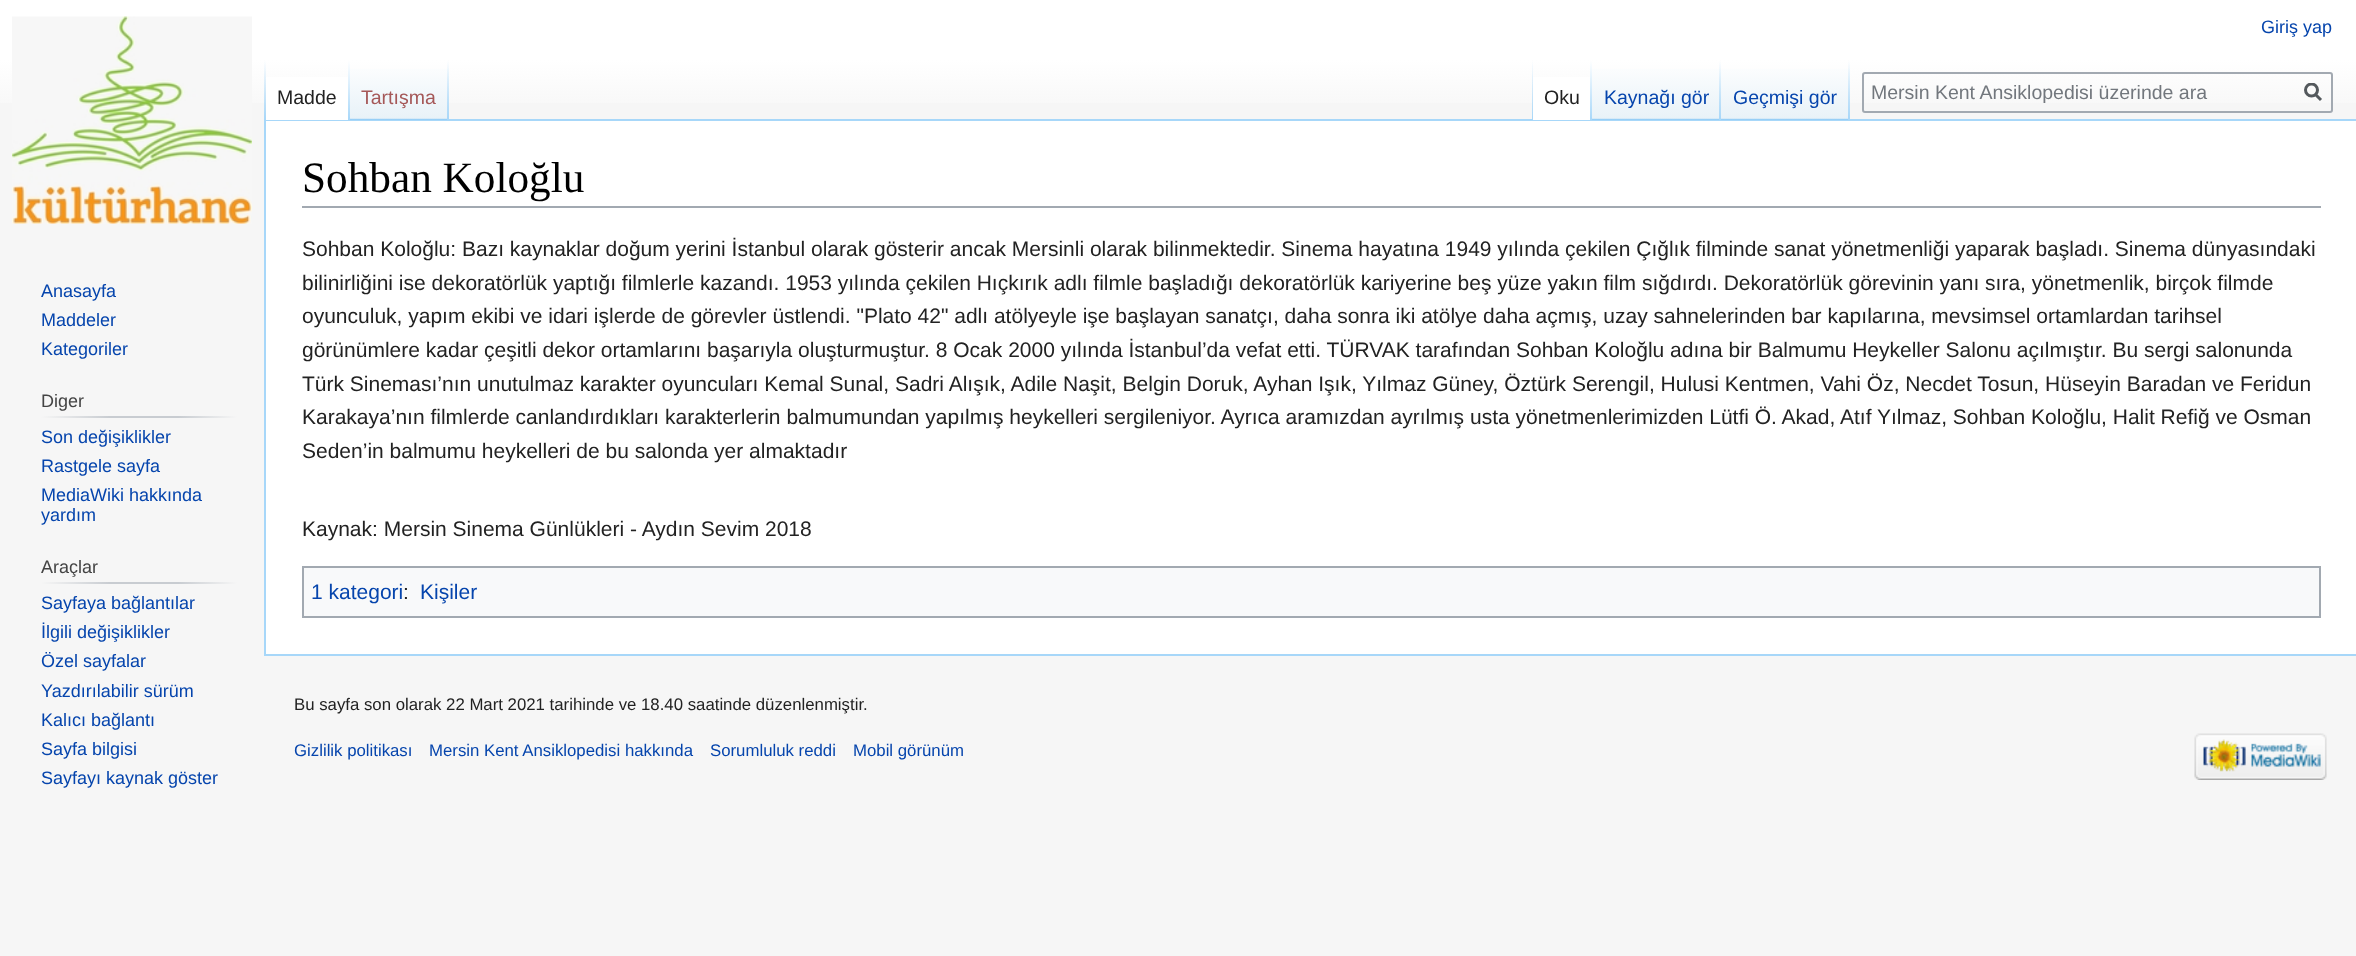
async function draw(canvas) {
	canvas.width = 2356;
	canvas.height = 956;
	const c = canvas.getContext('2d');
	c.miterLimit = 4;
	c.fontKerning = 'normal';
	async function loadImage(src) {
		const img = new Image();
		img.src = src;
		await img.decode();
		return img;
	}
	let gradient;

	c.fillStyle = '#f6f6f6';
	c.fillRect(0, 0, 2356, 956);
	gradient = c.createLinearGradient(1178, 0, 1178, 120);
	gradient.addColorStop(0.5, '#fff');
	gradient.addColorStop(1, '#f6f6f6');
	c.fillStyle = gradient;
	c.fillRect(0, 0, 2356, 103);
	c.font = '18px Liberation Sans';
	c.fillStyle = '#0645ad';
	c.fillText('Giriş yap', 2261, 33);
	for (const [x, y, w, h, color] of [
		[264, 119, 2092, 2, '#a7d7f9'],
		[264, 654, 2092, 2, '#a7d7f9'],
		[264, 119, 2, 537, '#a7d7f9'],
	]) {
		c.fillStyle = color;
		c.fillRect(x, y, w, h);
	}
	gradient = c.createLinearGradient(265, 60, 265, 120);
	gradient.addColorStop(0, '#a7d7f900');
	gradient.addColorStop(1, '#a7d7f9');
	c.fillStyle = gradient;
	c.fillRect(264, 60, 2, 60);
	c.fillStyle = '#fff';
	c.fillRect(266, 77, 82, 43);
	gradient = c.createLinearGradient(349, 60, 349, 120);
	gradient.addColorStop(0, '#fff');
	gradient.addColorStop(1, '#a7d7f9');
	c.fillStyle = gradient;
	c.fillRect(348, 60, 2, 60);
	c.font = '19.5px Liberation Sans';
	c.fillStyle = '#222';
	c.fillText('Madde', 277, 104);
	gradient = c.createLinearGradient(399, 120, 399, 60);
	gradient.addColorStop(0, '#77c1f6');
	gradient.addColorStop(0.03, '#e8f2f8');
	gradient.addColorStop(1, '#fff');
	c.fillStyle = gradient;
	c.fillRect(350, 69, 99, 51);
	gradient = c.createLinearGradient(448, 60, 448, 120);
	gradient.addColorStop(0, '#a7d7f900');
	gradient.addColorStop(1, '#a7d7f9');
	c.fillStyle = gradient;
	c.fillRect(447, 60, 2, 60);
	c.fillStyle = '#a55858';
	c.fillText('Tartışma', 361, 104);
	gradient = c.createLinearGradient(1532, 60, 1532, 120);
	gradient.addColorStop(0, '#a7d7f900');
	gradient.addColorStop(1, '#a7d7f9');
	c.fillStyle = gradient;
	c.fillRect(1532, 60, 1, 60);
	c.fillStyle = '#fff';
	c.fillRect(1533, 77, 57, 43);
	gradient = c.createLinearGradient(1591, 60, 1591, 120);
	gradient.addColorStop(0, '#fff');
	gradient.addColorStop(1, '#a7d7f9');
	c.fillStyle = gradient;
	c.fillRect(1590, 60, 2, 60);
	c.fillStyle = '#222';
	c.fillText('Oku', 1544, 104);
	gradient = c.createLinearGradient(1656, 120, 1656, 60);
	gradient.addColorStop(0, '#77c1f6');
	gradient.addColorStop(0.03, '#e8f2f8');
	gradient.addColorStop(1, '#fff');
	c.fillStyle = gradient;
	c.fillRect(1592, 69, 129, 51);
	gradient = c.createLinearGradient(1720, 60, 1720, 120);
	gradient.addColorStop(0, '#a7d7f900');
	gradient.addColorStop(1, '#a7d7f9');
	c.fillStyle = gradient;
	c.fillRect(1719, 60, 2, 60);
	c.fillStyle = '#0645ad';
	c.fillText('Kaynağı gör', 1604, 104);
	gradient = c.createLinearGradient(1785, 120, 1785, 60);
	gradient.addColorStop(0, '#77c1f6');
	gradient.addColorStop(0.03, '#e8f2f8');
	gradient.addColorStop(1, '#fff');
	c.fillStyle = gradient;
	c.fillRect(1721, 69, 129, 51);
	gradient = c.createLinearGradient(1849, 60, 1849, 120);
	gradient.addColorStop(0, '#a7d7f900');
	gradient.addColorStop(1, '#a7d7f9');
	c.fillStyle = gradient;
	c.fillRect(1848, 60, 2, 60);
	c.fillStyle = '#0645ad';
	c.fillText('Geçmişi gör', 1733, 104);
	c.beginPath();
	c.roundRect(1863, 73, 469, 39, 2);
	c.strokeStyle = '#a2a9b1';
	c.lineWidth = 2;
	c.stroke();
	c.fillStyle = '#72777d';
	c.fillText('Mersin Kent Ansiklopedisi üzerinde ara', 1871, 99);
	c.beginPath();
	c.moveTo(2321, 100);
	c.lineTo(2315, 94);
	c.strokeStyle = '#54595d';
	c.lineWidth = 3;
	c.stroke();
	c.save();
	c.beginPath();
	c.rect(2304, 83, 18, 19);
	c.clip();
	c.beginPath();
	c.arc(2311.5, 90, 6, 0, 2 * Math.PI);
	c.stroke();
	c.restore();
	c.drawImage(await loadImage('img1.png'), 12, 16, 240, 208);
	c.font = '18px Liberation Sans';
	c.fillStyle = '#0645ad';
	for (const [text, x, y] of [
		['Anasayfa', 41, 297],
		['Maddeler', 41, 326],
		['Kategoriler', 41, 355],
	]) {
		c.fillText(text, x, y);
	}
	c.fillStyle = '#444';
	c.fillText('Diger', 41, 407);
	gradient = c.createLinearGradient(41, 416, 237, 416);
	gradient.addColorStop(0, '#f6f6f6');
	gradient.addColorStop(0.35, '#c8ccd1');
	gradient.addColorStop(0.7, '#c8ccd1');
	gradient.addColorStop(1, '#f6f6f6');
	c.fillStyle = gradient;
	c.fillRect(41, 416, 196, 2);
	c.fillStyle = '#0645ad';
	for (const [text, x, y] of [
		['Son değişiklikler', 41, 443],
		['Rastgele sayfa', 41, 472],
		['MediaWiki hakkında', 41, 501],
		['yardım', 41, 521],
	]) {
		c.fillText(text, x, y);
	}
	c.fillStyle = '#444';
	c.fillText('Araçlar', 41, 573);
	gradient = c.createLinearGradient(41, 583, 237, 583);
	gradient.addColorStop(0, '#f6f6f6');
	gradient.addColorStop(0.35, '#c8ccd1');
	gradient.addColorStop(0.7, '#c8ccd1');
	gradient.addColorStop(1, '#f6f6f6');
	c.fillStyle = gradient;
	c.fillRect(41, 582, 196, 2);
	c.fillStyle = '#0645ad';
	for (const [text, x, y] of [
		['Sayfaya bağlantılar', 41, 609],
		['İlgili değişiklikler', 41, 638],
		['Özel sayfalar', 41, 667],
		['Yazdırılabilir sürüm', 41, 697],
		['Kalıcı bağlantı', 41, 726],
		['Sayfa bilgisi', 41, 755],
		['Sayfayı kaynak göster', 41, 784],
	]) {
		c.fillText(text, x, y);
	}
	c.fillStyle = '#fff';
	c.fillRect(266, 121, 2090, 533);
	c.fillStyle = '#a2a9b1';
	c.fillRect(302, 206, 2019, 2);
	c.font = '43.25px Liberation Serif';
	c.fillStyle = '#000';
	c.fillText('Sohban Koloğlu', 302, 192);
	c.font = '21px Liberation Sans';
	c.fillStyle = '#222';
	for (const [text, x, y] of [
		['Sohban Koloğlu: Bazı kaynaklar doğum yerini İstanbul olarak gösterir ancak Mersinli olarak bilinmektedir. Sinema hayatına 1949 yılında çekilen Çığlık filminde sanat yönetmenliği yaparak başladı. Sinema dünyasındaki', 302, 256],
		['bilinirliğini ise dekoratörlük yaptığı filmlerle kazandı. 1953 yılında çekilen Hıçkırık adlı filmle başladığı dekoratörlük kariyerine beş yüze yakın film sığdırdı. Dekoratörlük görevinin yanı sıra, yönetmenlik, birçok filmde', 302, 290],
		['oyunculuk, yapım ekibi ve idari işlerde de görevler üstlendi. "Plato 42" adlı atölyeyle işe başlayan sanatçı, daha sonra iki atölye daha açmış, uzay sahnelerinden bar kapılarına, mevsimsel ortamlardan tarihsel', 302, 323],
		['görünümlere kadar çeşitli dekor ortamlarını başarıyla oluşturmuştur. 8 Ocak 2000 yılında İstanbul’da vefat etti. TÜRVAK tarafından Sohban Koloğlu adına bir Balmumu Heykeller Salonu açılmıştır. Bu sergi salonunda', 302, 357],
		['Türk Sineması’nın unutulmaz karakter oyuncuları Kemal Sunal, Sadri Alışık, Adile Naşit, Belgin Doruk, Ayhan Işık, Yılmaz Güney, Öztürk Serengil, Hulusi Kentmen, Vahi Öz, Necdet Tosun, Hüseyin Baradan ve Feridun', 302, 391],
		['Karakaya’nın filmlerde canlandırdıkları karakterlerin balmumundan yapılmış heykelleri sergileniyor. Ayrıca aramızdan ayrılmış usta yönetmenlerimizden Lütfi Ö. Akad, Atıf Yılmaz, Sohban Koloğlu, Halit Refiğ ve Osman', 302, 424],
		['Seden’in balmumu heykelleri de bu salonda yer almaktadır', 302, 458],
		['Kaynak: Mersin Sinema Günlükleri - Aydın Sevim 2018', 302, 536],
	]) {
		c.fillText(text, x, y);
	}
	c.fillStyle = '#f8f9fa';
	c.beginPath();
	c.rect(303, 567, 2017, 50);
	c.fill();
	c.strokeStyle = '#a2a9b1';
	c.lineWidth = 2;
	c.stroke();
	c.fillStyle = '#0645ad';
	c.fillText('1 kategori', 311, 599);
	c.fillStyle = '#222';
	c.fillText(':', 403, 599);
	c.fillStyle = '#0645ad';
	c.fillText('Kişiler', 420, 599);
	c.font = '16.8px Liberation Sans';
	c.fillStyle = '#222';
	c.fillText('Bu sayfa son olarak 22 Mart 2021 tarihinde ve 18.40 saatinde düzenlenmiştir.', 294, 710);
	c.fillStyle = '#0645ad';
	for (const [text, x, y] of [
		['Gizlilik politikası', 294, 756],
		['Mersin Kent Ansiklopedisi hakkında', 429, 756],
		['Sorumluluk reddi', 710, 756],
		['Mobil görünüm', 853, 756],
	]) {
		c.fillText(text, x, y);
	}
	c.drawImage(await loadImage('img2.png'), 2194, 733, 133, 47);
}

draw(document.querySelector('canvas'));
